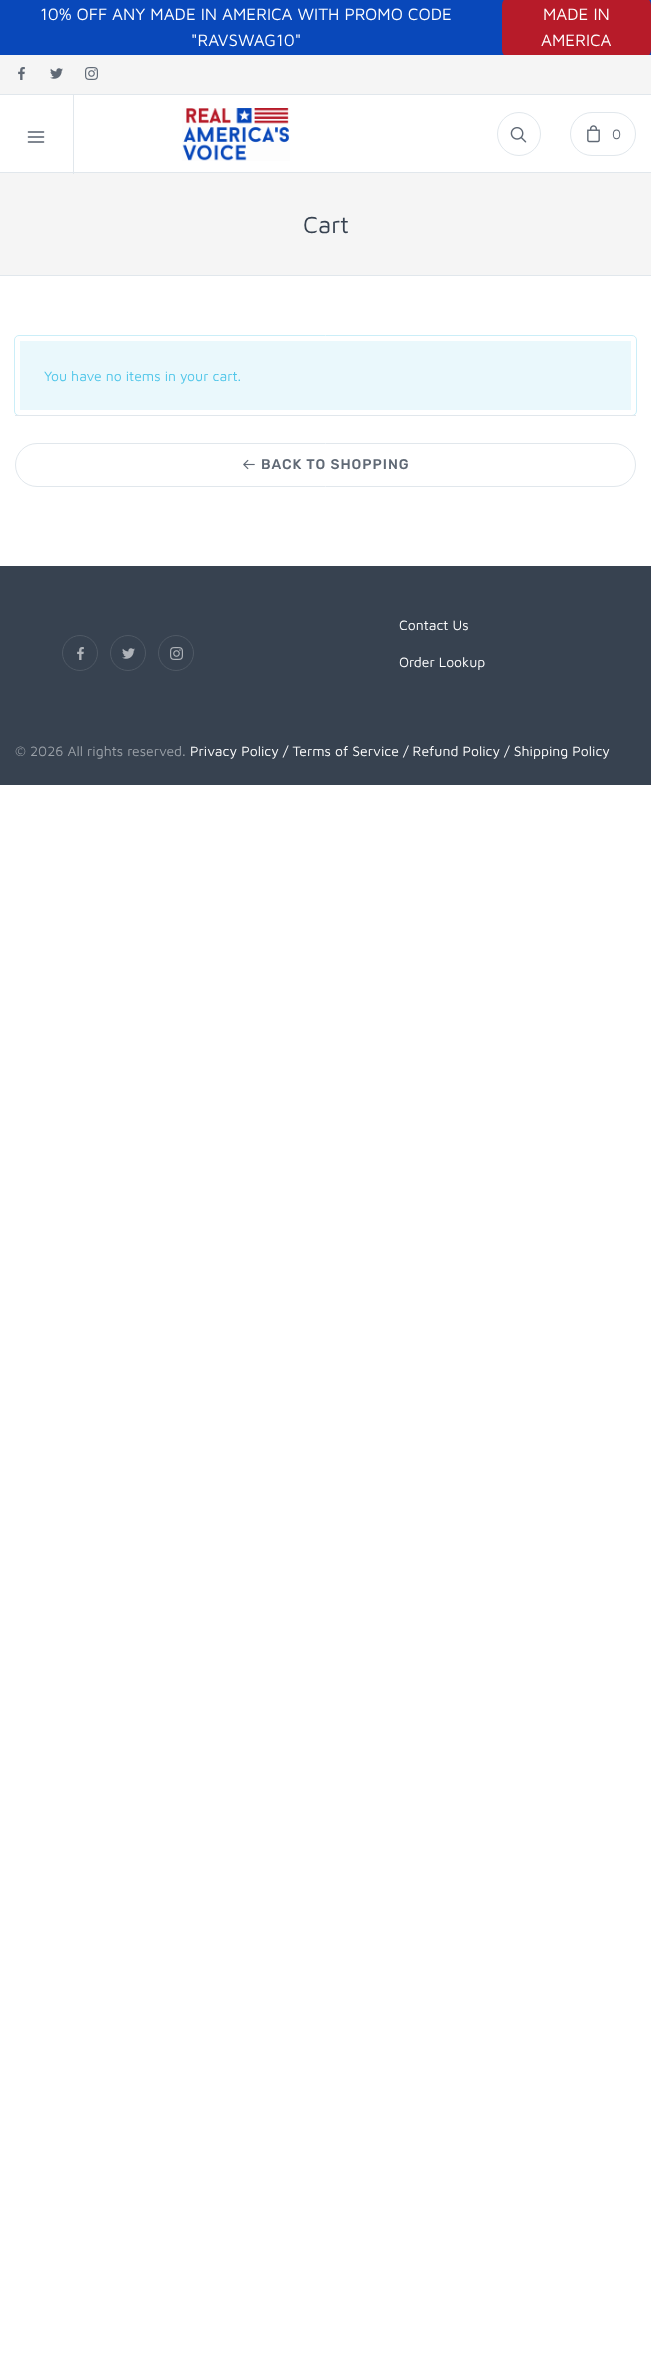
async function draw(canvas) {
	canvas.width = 651;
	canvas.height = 2369;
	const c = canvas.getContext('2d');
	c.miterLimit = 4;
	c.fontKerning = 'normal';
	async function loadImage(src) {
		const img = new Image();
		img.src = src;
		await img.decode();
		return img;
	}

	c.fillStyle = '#fff';
	c.fillRect(0, 0, 651, 2369);
	c.fillStyle = '#0948ba';
	c.fillRect(0, 0, 651, 55);
	c.font = '17px Maven Pro';
	c.fillStyle = '#fff';
	c.fillText('10% OFF ANY MADE IN AMERICA WITH PROMO CODE', 40, 20);
	c.fillText('"RAVSWAG10"', 191, 46);
	c.fillStyle = '#b71b29';
	c.beginPath();
	c.roundRect(502, -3, 149, 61, 8);
	c.fill();
	c.fillStyle = '#fff';
	c.fillText('MADE IN', 543, 20);
	c.fillText('AMERICA', 541, 46);
	c.fillStyle = '#f5f5f5';
	c.fillRect(0, 55, 651, 39);
	c.fillStyle = '#e1e7ec';
	c.fillRect(0, 94, 651, 1);
	c.drawImage(await loadImage('img1.png'), 18, 67, 7, 13);
	c.drawImage(await loadImage('img2.png'), 50, 68, 13, 11);
	c.drawImage(await loadImage('img3.png'), 85, 67, 13, 13);
	for (const [x, y, w, h, color] of [
		[0, 172, 651, 1, '#e1e7ec'],
		[0, 173, 651, 102, '#f5f5f5'],
		[73, 95, 1, 79, '#e1e7ec'],
	]) {
		c.fillStyle = color;
		c.fillRect(x, y, w, h);
	}
	c.drawImage(await loadImage('img4.png'), 27, 131, 18, 12);
	c.drawImage(await loadImage('img5.png'), 182, 108, 108, 53);
	c.beginPath();
	c.arc(519, 134, 21.5, 0, 2 * Math.PI);
	c.strokeStyle = '#e1e7ec';
	c.stroke();
	c.drawImage(await loadImage('img6.png'), 510, 127, 17, 16);
	c.beginPath();
	c.roundRect(570.5, 112.5, 65, 43, 21.5);
	c.stroke();
	c.drawImage(await loadImage('img7.png'), 587, 125, 13, 18);
	c.font = '14px Maven Pro';
	c.fillStyle = '#606975';
	c.fillText('0', 612, 139);
	c.fillStyle = '#e1e7ec';
	c.fillRect(0, 275, 651, 1);
	c.font = '24px Maven Pro';
	c.fillStyle = '#374250';
	c.fillText('Cart', 303, 233);
	c.beginPath();
	c.roundRect(14.5, 335.5, 622, 80, 4.5);
	c.strokeStyle = '#cbeef8';
	c.stroke();
	c.fillStyle = '#eaf8fc';
	c.fillRect(20, 341, 611, 69);
	c.font = '14px Maven Pro';
	c.fillStyle = '#50c6e9';
	c.fillText('You have no items in your cart.', 44, 381);
	c.fillStyle = '#e1e7ec';
	c.fillRect(15, 415, 621, 1);
	c.beginPath();
	c.roundRect(15.5, 443.5, 620, 43, 21.5);
	c.strokeStyle = '#e1e7ec';
	c.stroke();
	c.drawImage(await loadImage('img8.png'), 243, 459, 12, 11);
	c.letterSpacing = '1px';
	c.font = '500 14px Rubik';
	c.fillStyle = '#606975';
	c.fillText('BACK TO SHOPPING', 261, 469);
	c.fillStyle = '#374250';
	c.fillRect(0, 566, 651, 219);
	c.beginPath();
	c.arc(80, 653, 17.5, 0, 2 * Math.PI);
	c.strokeStyle = '#4f5965';
	c.stroke();
	c.drawImage(await loadImage('img9.png'), 77, 647, 7, 13);
	c.beginPath();
	c.arc(128, 653, 17.5, 0, 2 * Math.PI);
	c.stroke();
	c.drawImage(await loadImage('img10.png'), 122, 648, 13, 11);
	c.beginPath();
	c.arc(176, 653, 17.5, 0, 2 * Math.PI);
	c.stroke();
	c.drawImage(await loadImage('img11.png'), 170, 647, 13, 13);
	c.letterSpacing = '0px';
	c.font = '14px Maven Pro';
	c.fillStyle = '#fff';
	c.fillText('Contact Us', 399, 630);
	c.fillText('Order Lookup', 399, 667);
	c.fillStyle = '#9ba1a8';
	c.fillText('© 2026 All rights reserved.', 15, 756);
	c.fillStyle = '#fff';
	c.fillText('Privacy Policy / Terms of Service / Refund Policy / Shipping Policy', 190, 756);
}

draw(document.querySelector('canvas'));
